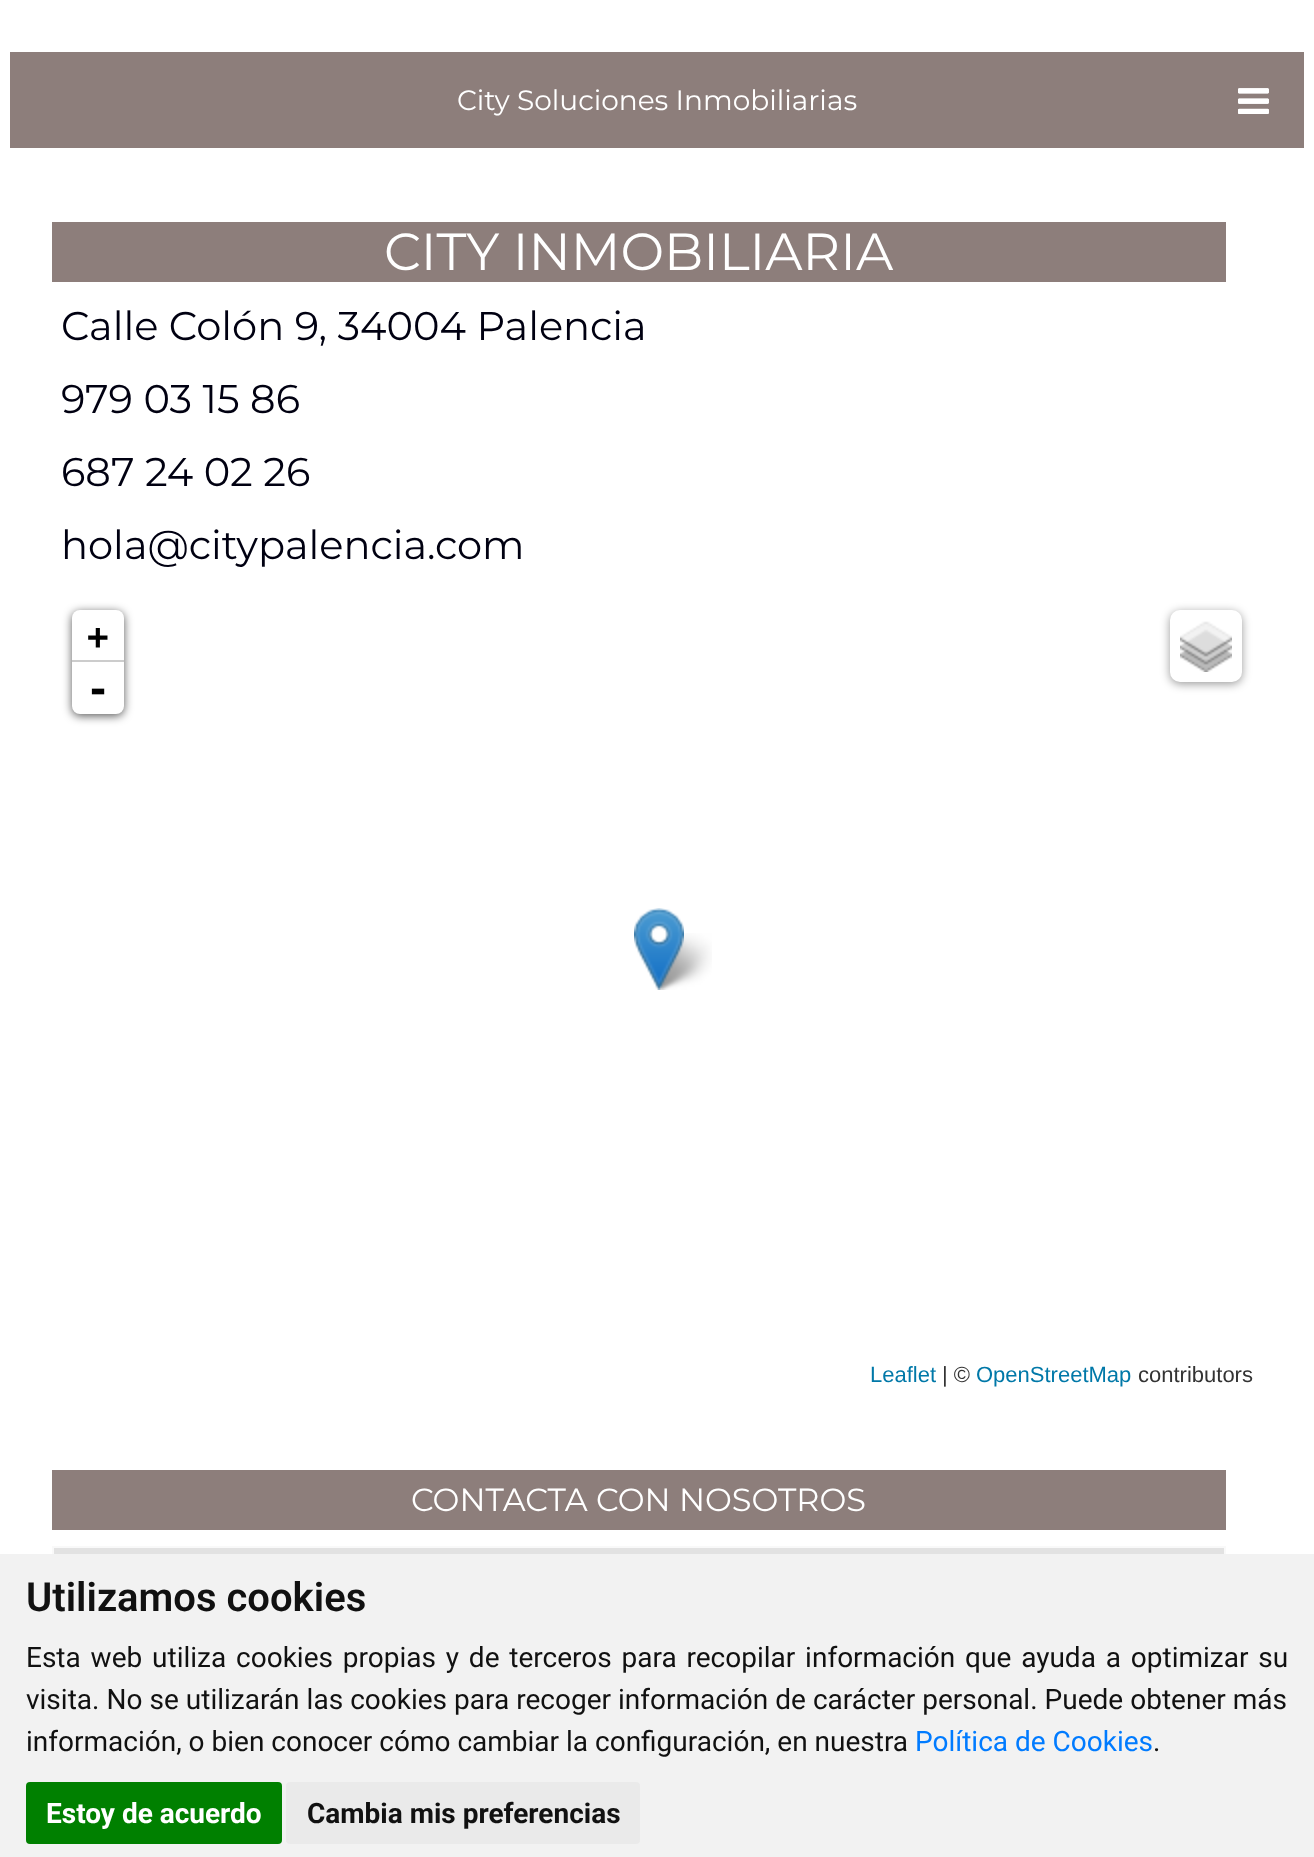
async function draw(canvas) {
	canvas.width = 1314;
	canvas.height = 1857;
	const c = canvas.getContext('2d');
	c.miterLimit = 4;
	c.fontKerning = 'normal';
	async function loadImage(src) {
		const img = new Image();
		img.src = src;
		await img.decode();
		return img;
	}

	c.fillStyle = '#fff';
	c.fillRect(0, 0, 1314, 1857);
	c.fillStyle = '#8d7e7b';
	c.fillRect(10, 52, 1294, 96);
	c.drawImage(await loadImage('img1.png'), 1238, 88, 31, 26);
	c.font = '28px Montserrat';
	c.fillStyle = '#fff';
	c.fillText('City Soluciones Inmobiliarias', 457, 110);
	c.drawImage(await loadImage('img2.png'), 1238, 88, 31, 26);
	c.fillStyle = '#8d7e7b';
	c.fillRect(52, 222, 1174, 60);
	c.font = '52px Montserrat';
	c.fillStyle = '#fff';
	c.fillText('CITY INMOBILIARIA', 384, 270);
	c.font = '40px Montserrat';
	c.fillStyle = '#001';
	for (const [text, x, y] of [
		['Calle Colón 9, 34004 Palencia', 61, 340],
		['979 03 15 86', 61, 413],
		['687 24 02 26', 61, 486],
		['hola@citypalencia.com', 61, 559],
	]) {
		c.fillText(text, x, y);
	}
	c.fillStyle = '#000000a6';
	c.filter = 'blur(5px)';
	c.beginPath();
	c.roundRect(72, 612, 52, 104, 8);
	c.fill();
	c.filter = 'none';
	c.fillStyle = '#fff';
	c.beginPath();
	c.roundRect(72, 610, 52, 52, [8, 8, 0, 0]);
	c.fill();
	c.fillStyle = '#ccc';
	c.fillRect(72, 660, 52, 2);
	c.font = 'bold 36px DejaVu Sans Mono';
	c.fillStyle = '#000';
	c.fillText('+', 87, 649);
	c.fillStyle = '#fff';
	c.beginPath();
	c.roundRect(72, 662, 52, 52, [0, 0, 8, 8]);
	c.fill();
	c.font = 'bold 40px DejaVu Sans Mono';
	c.fillStyle = '#000';
	c.fillText('-', 86, 703);
	c.fillStyle = '#00000066';
	c.filter = 'blur(5px)';
	c.beginPath();
	c.roundRect(1170, 612, 72, 72, 10);
	c.fill();
	c.filter = 'none';
	c.fillStyle = '#fff';
	c.beginPath();
	c.roundRect(1170, 610, 72, 72, 10);
	c.fill();
	c.drawImage(await loadImage('img3.png'), 1180, 621, 52, 51);
	c.font = '22px Liberation Sans';
	c.fillStyle = '#0078a8';
	c.fillText('Leaflet', 870, 1382);
	c.fillStyle = '#333';
	c.fillText('| ©', 942, 1382);
	c.fillStyle = '#0078a8';
	c.fillText('OpenStreetMap', 976, 1382);
	c.fillStyle = '#333';
	c.fillText('contributors', 1138, 1382);
	c.drawImage(await loadImage('img5.png'), 652, 933, 60, 57);
	c.drawImage(await loadImage('img4.png'), 634, 908, 50, 82);
	c.fillStyle = '#8d7e7b';
	c.fillRect(52, 1470, 1174, 60);
	c.font = '32px Montserrat';
	c.fillStyle = '#fff';
	c.fillText('CONTACTA CON NOSOTROS', 411, 1511);
	c.fillStyle = '#e2e2e2';
	c.fillRect(54, 1548, 1170, 6);
	c.strokeStyle = '#f9f9f9';
	c.lineWidth = 2;
	c.strokeRect(53, 1547, 1172, 62);
	c.fillStyle = '#f2f2f2';
	c.fillRect(0, 1554, 1314, 303);
	c.font = '600 40px Roboto';
	c.fillStyle = '#111';
	c.fillText('Utilizamos cookies', 26, 1611);
	c.wordSpacing = '2.9px';
	c.font = '28px Roboto';
	c.fillText('Esta web utiliza cookies propias y de terceros para recopilar información que ayuda a optimizar su', 26, 1667);
	c.wordSpacing = '0.1px';
	c.fillText('visita. No se utilizarán las cookies para recoger información de carácter personal. Puede obtener más', 26, 1709);
	c.wordSpacing = '0px';
	c.fillText('información, o bien conocer cómo cambiar la configuración, en nuestra', 26, 1751);
	c.fillStyle = '#007bff';
	c.fillText('Política de Cookies', 915, 1751);
	c.fillStyle = '#111';
	c.fillText('.', 1153, 1751);
	c.fillStyle = '#008000';
	c.beginPath();
	c.roundRect(26, 1782, 256, 62, 4);
	c.fill();
	c.font = 'bold 28px Roboto';
	c.fillStyle = '#fff';
	c.fillText('Estoy de acuerdo', 46, 1823);
	c.fillStyle = '#eaeaea';
	c.beginPath();
	c.roundRect(286, 1782, 354, 62, 4);
	c.fill();
	c.fillStyle = '#111';
	c.fillText('Cambia mis preferencias', 307, 1823);
}

draw(document.querySelector('canvas'));
